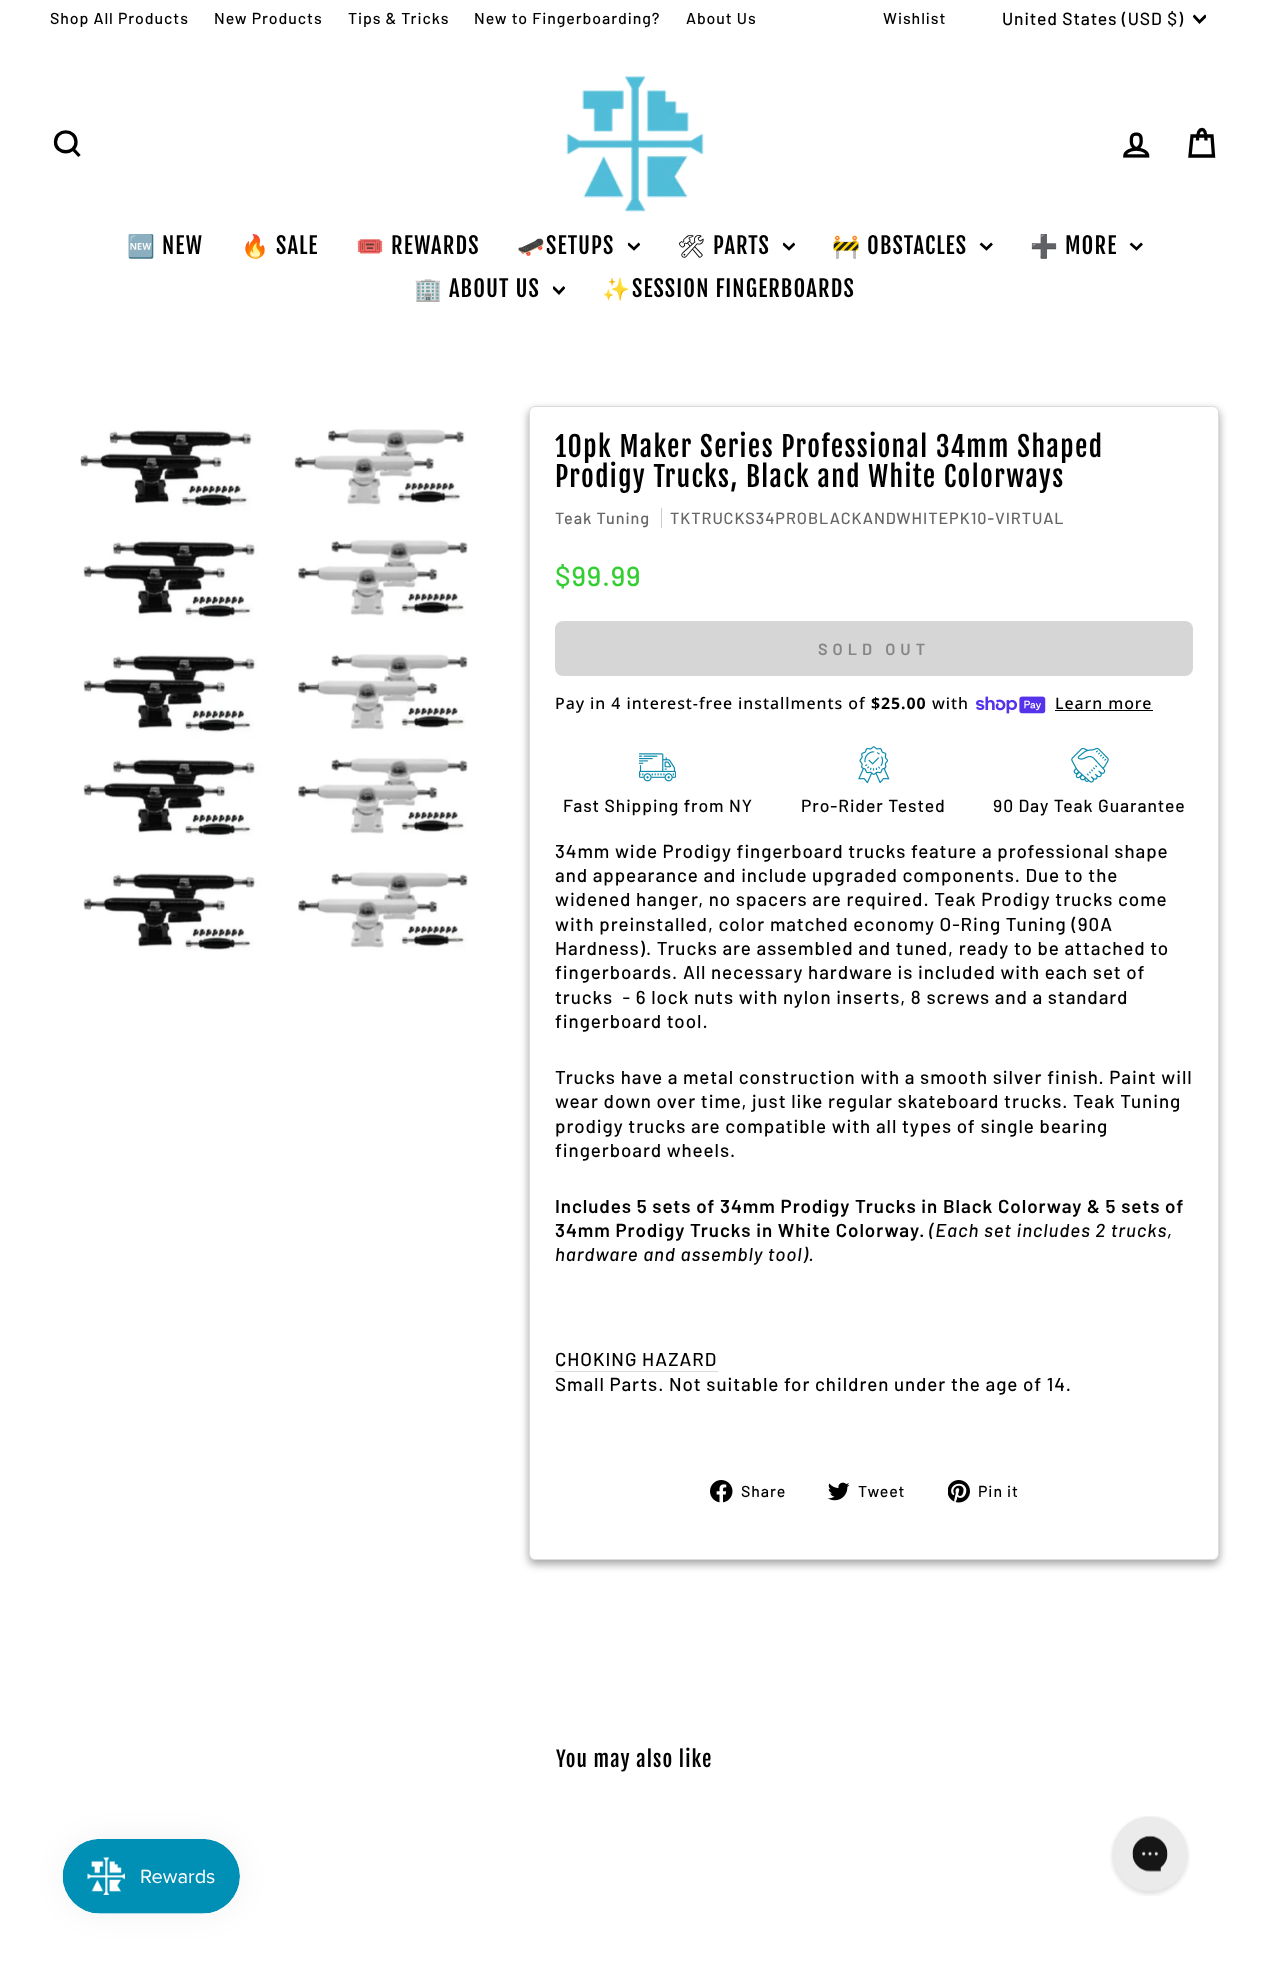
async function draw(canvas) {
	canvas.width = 1268;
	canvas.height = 1976;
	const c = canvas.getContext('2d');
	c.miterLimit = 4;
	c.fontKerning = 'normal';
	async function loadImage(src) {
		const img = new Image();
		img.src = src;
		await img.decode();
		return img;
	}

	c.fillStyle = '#fff';
	c.fillRect(0, 0, 1268, 1976);
	c.letterSpacing = '0.95px';
	c.font = '500 15.9px Barlow';
	c.fillStyle = '#000';
	for (const [text, x, y] of [
		['Shop All Products', 50, 24],
		['New Products', 214, 24],
		['Tips & Tricks', 348, 24],
		['New to Fingerboarding?', 474, 24],
		['About Us', 686, 24],
		['Wishlist', 883, 24],
	]) {
		c.fillText(text, x, y);
	}
	c.letterSpacing = '0.9px';
	c.font = '500 17.5px Barlow';
	c.fillText('United States (USD $)', 1002, 25);
	c.save();
	c.beginPath();
	c.rect(1193, 13, 13, 13);
	c.clip();
	c.beginPath();
	c.moveTo(1193.5, 15.5);
	c.lineTo(1199.5, 22);
	c.lineTo(1206, 15.5);
	c.strokeStyle = '#000';
	c.lineWidth = 2.9;
	c.stroke();
	c.restore();
	c.beginPath();
	c.moveTo(76, 142);
	c.bezierCurveTo(76, 155, 55.5, 155, 55.5, 142);
	c.bezierCurveTo(55.5, 128.5, 76, 128.5, 76, 142);
	c.closePath();
	c.moveTo(79.5, 156);
	c.lineTo(73, 149);
	c.strokeStyle = '#000';
	c.lineWidth = 3.3;
	c.stroke();
	c.drawImage(await loadImage('img1.png'), 566, 76, 138, 136);
	c.drawImage(await loadImage('img2.png'), 1123, 132, 27, 26);
	c.beginPath();
	c.moveTo(1197.5, 140.5);
	c.bezierCurveTo(1197.5, 132, 1199.5, 129.5, 1202, 129.5);
	c.bezierCurveTo(1204, 129.5, 1206, 132, 1206, 140.5);
	c.moveTo(1192, 136);
	c.lineTo(1212, 136);
	c.lineTo(1213.5, 156);
	c.lineTo(1190, 156);
	c.closePath();
	c.stroke();
	c.letterSpacing = '1.1px';
	c.font = '22.5px Noto Color Emoji';
	c.fillText('🆕', 127, 254);
	c.font = '22.5px Fjalla One';
	c.fillText('NEW', 162, 254);
	c.font = '22.5px Noto Color Emoji';
	c.fillText('🔥', 241, 254);
	c.font = '22.5px Fjalla One';
	c.fillText('SALE', 276, 254);
	c.font = '22.5px Noto Color Emoji';
	c.fillText('🎟️', 356, 254);
	c.font = '22.5px Fjalla One';
	c.fillText('REWARDS', 391, 254);
	c.font = '22.5px Noto Color Emoji';
	c.fillText('🛹', 517, 254);
	c.font = '22.5px Fjalla One';
	c.fillText('SETUPS', 546, 254);
	c.save();
	c.beginPath();
	c.rect(628, 240, 12, 13);
	c.clip();
	c.beginPath();
	c.moveTo(628, 243.5);
	c.lineTo(634, 249);
	c.lineTo(639.5, 243.5);
	c.lineWidth = 2.7;
	c.stroke();
	c.restore();
	c.font = '22.5px Noto Emoji';
	c.fillText('🛠', 677, 254);
	c.font = '22.5px Fjalla One';
	c.fillText('PARTS', 713, 254);
	c.save();
	c.beginPath();
	c.rect(783, 240, 12, 13);
	c.clip();
	c.beginPath();
	c.moveTo(783, 243.5);
	c.lineTo(789, 249);
	c.lineTo(794.5, 243.5);
	c.lineWidth = 2.7;
	c.stroke();
	c.restore();
	c.font = '22.5px Noto Color Emoji';
	c.fillText('🚧', 832, 254);
	c.font = '22.5px Fjalla One';
	c.fillText('OBSTACLES', 867, 254);
	c.beginPath();
	c.moveTo(980.5, 243.5);
	c.lineTo(986.5, 249);
	c.lineTo(992, 243.5);
	c.lineWidth = 2.7;
	c.stroke();
	c.font = '22.5px Noto Color Emoji';
	c.fillText('➕', 1030, 254);
	c.font = '22.5px Fjalla One';
	c.fillText('MORE', 1065, 254);
	c.beginPath();
	c.moveTo(1130.5, 243.5);
	c.lineTo(1136.5, 249);
	c.lineTo(1142, 243.5);
	c.stroke();
	c.font = '22.5px Noto Color Emoji';
	c.fillText('🏢', 414, 297);
	c.font = '22.5px Fjalla One';
	c.fillText('ABOUT US', 449, 297);
	c.save();
	c.beginPath();
	c.rect(553, 284, 12, 12);
	c.clip();
	c.beginPath();
	c.moveTo(553, 287);
	c.lineTo(559, 293);
	c.lineTo(564.5, 287);
	c.stroke();
	c.restore();
	c.font = '22.5px Noto Color Emoji';
	c.fillText('✨', 602, 297);
	c.font = '22.5px Fjalla One';
	c.fillText('SESSION FINGERBOARDS', 632, 297);
	c.drawImage(await loadImage('img3.png'), 80, 429, 388, 522);
	c.fillStyle = '#0000003b';
	c.filter = 'blur(4px)';
	c.beginPath();
	c.roundRect(529, 410, 690, 1154, 6);
	c.fill();
	c.filter = 'none';
	c.fillStyle = '#00000029';
	c.filter = 'blur(4px)';
	c.beginPath();
	c.roundRect(529, 410, 690, 1154, 6);
	c.fill();
	c.filter = 'none';
	c.fillStyle = '#fff';
	c.beginPath();
	c.roundRect(529.5, 406.5, 689, 1153, 5.5);
	c.fill();
	c.strokeStyle = '#dadce0';
	c.lineWidth = 1;
	c.stroke();
	c.letterSpacing = '1.4px';
	c.font = '27.6px Fjalla One';
	c.fillStyle = '#000';
	c.fillText('10pk Maker Series Professional 34mm Shaped', 555, 457);
	c.fillText('Prodigy Trucks, Black and White Colorways', 555, 487);
	c.letterSpacing = '0.95px';
	c.font = '500 16.25px Barlow';
	c.fillStyle = '#666';
	c.fillText('Teak Tuning', 555, 524);
	c.fillText('TKTRUCKS34PROBLACKANDWHITEPK10-VIRTUAL', 670, 524);
	c.fillStyle = '#ccc';
	c.fillRect(661, 508, 1, 20);
	c.font = '500 27.5px Barlow';
	c.fillStyle = '#33cf31';
	c.fillText('$99.99', 555, 586);
	c.fillStyle = '#d6d6d6';
	c.beginPath();
	c.roundRect(555, 621, 638, 55, 8);
	c.fill();
	c.letterSpacing = '5px';
	c.font = '600 16.25px Barlow';
	c.fillStyle = '#858585';
	c.fillText('SOLD OUT', 818, 655);
	c.letterSpacing = '0.95px';
	c.font = '500 15.9px Noto Sans';
	c.fillStyle = '#000';
	c.fillText('Pay in 4 interest-free installments of', 555, 709);
	c.font = 'bold 15.9px Noto Sans';
	c.fillText('$25.00', 871, 709);
	c.font = '500 15.9px Noto Sans';
	c.fillText('with', 932, 709);
	c.drawImage(await loadImage('img4.png'), 976, 696, 70, 18);
	c.fillText('Learn more', 1055, 709);
	c.fillRect(1055, 710, 98, 1);
	c.drawImage(await loadImage('img5.png'), 639, 753, 37, 29);
	c.font = '500 17.5px Barlow';
	c.fillText('Fast Shipping from NY', 563, 812);
	c.drawImage(await loadImage('img6.png'), 858, 746, 32, 38);
	c.fillText('Pro-Rider Tested', 801, 812);
	c.drawImage(await loadImage('img7.png'), 1071, 747, 38, 36);
	c.fillText('90 Day Teak Guarantee', 993, 812);
	c.font = '500 18.75px Barlow';
	for (const [text, x, y] of [
		['34mm wide Prodigy fingerboard trucks feature a professional shape', 555, 858],
		['and appearance and include upgraded components. Due to the', 555, 882],
		['widened hanger, no spacers are required. Teak Prodigy trucks come', 555, 906],
		['with preinstalled, color matched economy O-Ring Tuning (90A', 555, 931],
		['Hardness). Trucks are assembled and tuned, ready to be attached to', 555, 955],
		['fingerboards. All necessary hardware is included with each set of', 555, 979],
		['trucks  - 6 lock nuts with nylon inserts, 8 screws and a standard', 555, 1004],
		['fingerboard tool.', 555, 1028],
		['Trucks have a metal construction with a smooth silver finish. Paint will', 555, 1084],
		['wear down over time, just like regular skateboard trucks. Teak Tuning', 555, 1108],
		['prodigy trucks are compatible with all types of single bearing', 555, 1133],
		['fingerboard wheels.', 555, 1157],
	]) {
		c.fillText(text, x, y);
	}
	c.font = '600 18.75px Barlow';
	c.fillText('Includes 5 sets of 34mm Prodigy Trucks in Black Colorway & 5 sets of', 555, 1213);
	c.fillText('34mm Prodigy Trucks in White Colorway.', 555, 1237);
	c.font = 'italic 500 18.75px Barlow';
	c.fillText('(Each set includes 2 trucks,', 929, 1237);
	c.fillText('hardware and assembly tool).', 555, 1261);
	c.fillStyle = '#d9d9d9';
	c.fillRect(555, 1371, 163, 1);
	c.font = '500 18.75px Barlow';
	c.fillStyle = '#000';
	c.fillText('CHOKING HAZARD', 555, 1366);
	c.fillText('Small Parts. Not suitable for children under the age of 14.', 555, 1391);
	c.drawImage(await loadImage('img8.png'), 710, 1480, 23, 23);
	c.font = '500 15.9px Barlow';
	c.fillText('Share', 741, 1497);
	c.drawImage(await loadImage('img9.png'), 828, 1482, 22, 19);
	c.fillText('Tweet', 858, 1497);
	c.drawImage(await loadImage('img10.png'), 948, 1480, 22, 23);
	c.fillText('Pin it', 978, 1497);
	c.letterSpacing = '1.1px';
	c.font = '21px Fjalla One';
	c.fillText('You may also like', 556, 1767);
	c.fillStyle = '#0000000d';
	c.filter = 'blur(15.5px)';
	c.beginPath();
	c.roundRect(63, 1839, 177, 75, 37.5);
	c.fill();
	c.filter = 'none';
	c.drawImage(await loadImage('img11.png'), 62, 1839, 178, 75);
	c.drawImage(await loadImage('img12.png'), 1110, 1816, 80, 80);
}

draw(document.querySelector('canvas'));
